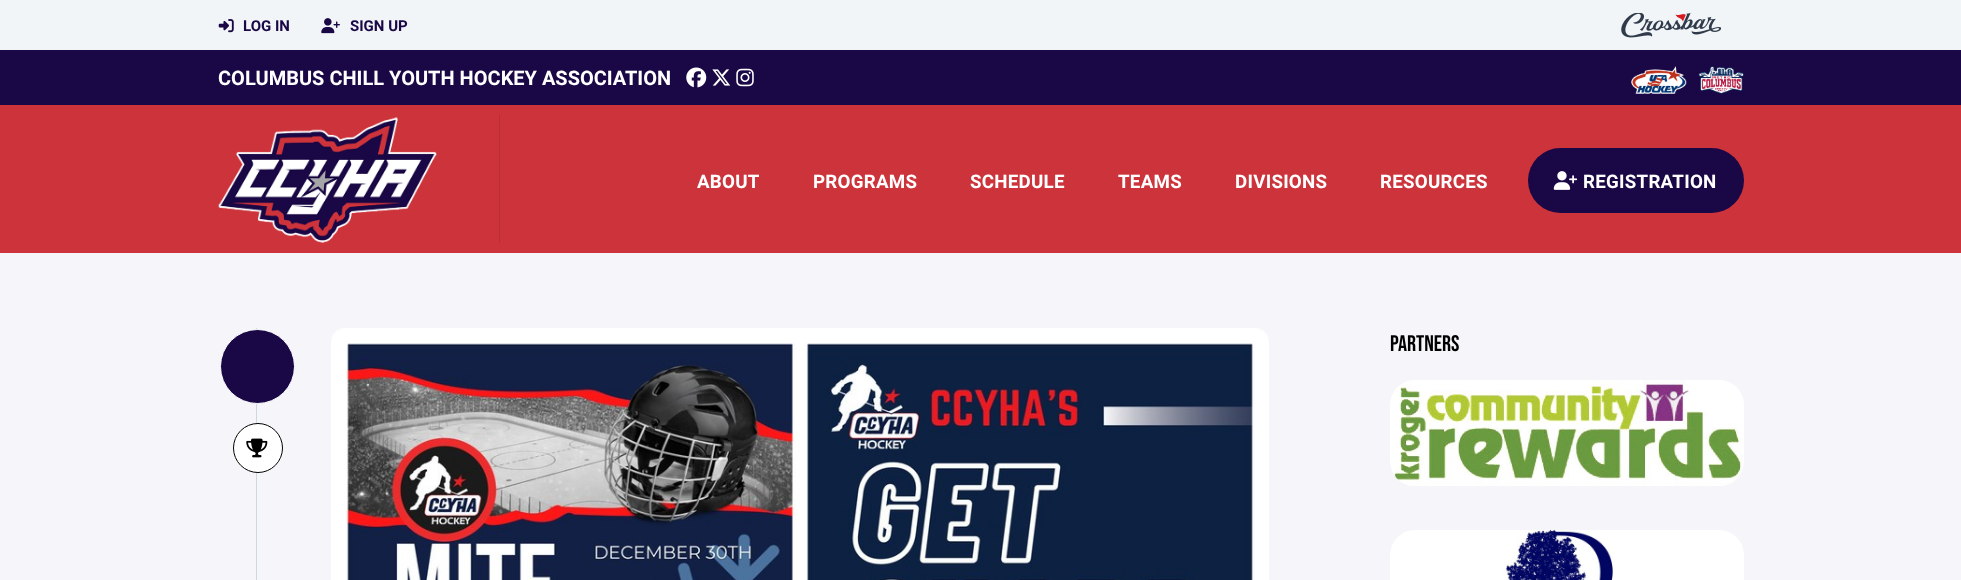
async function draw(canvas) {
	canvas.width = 1961;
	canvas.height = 580;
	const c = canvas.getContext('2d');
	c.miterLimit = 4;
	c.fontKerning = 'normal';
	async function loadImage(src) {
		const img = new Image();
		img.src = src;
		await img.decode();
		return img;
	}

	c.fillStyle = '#f2f5f7';
	c.fillRect(0, 0, 1961, 580);
	c.drawImage(await loadImage('img1.png'), 218, 19, 16, 14);
	c.font = 'bold 15px Roboto';
	c.fillStyle = '#1a0745';
	c.fillText('LOG IN', 243, 31);
	c.drawImage(await loadImage('img2.png'), 321, 18, 19, 16);
	c.fillText('SIGN UP', 350, 31);
	c.drawImage(await loadImage('img3.png'), 1621, 13, 100, 25);
	c.fillRect(0, 50, 1961, 55);
	c.font = 'bold 20px Roboto';
	c.fillStyle = '#fff';
	c.fillText('COLUMBUS CHILL YOUTH HOCKEY ASSOCIATION', 218, 85);
	c.drawImage(await loadImage('img4.png'), 686, 67, 21, 21);
	c.drawImage(await loadImage('img5.png'), 712, 69, 19, 17);
	c.drawImage(await loadImage('img6.png'), 736, 68, 18, 19);
	c.drawImage(await loadImage('img7.png'), 1631, 66, 56, 28);
	c.drawImage(await loadImage('img8.png'), 1698, 66, 46, 28);
	c.fillStyle = '#cc333a';
	c.fillRect(0, 105, 1961, 148);
	c.fillStyle = '#b82e34';
	c.fillRect(499, 115, 1, 128);
	c.drawImage(await loadImage('img9.png'), 218, 117, 219, 126);
	c.letterSpacing = '0.25px';
	c.font = 'bold 18.75px Roboto';
	c.fillStyle = '#fff';
	for (const [text, x, y] of [
		['ABOUT', 697, 188],
		['PROGRAMS', 813, 188],
		['SCHEDULE', 970, 188],
		['TEAMS', 1118, 188],
		['DIVISIONS', 1235, 188],
		['RESOURCES', 1380, 188],
	]) {
		c.fillText(text, x, y);
	}
	c.fillStyle = '#1a0745';
	c.beginPath();
	c.roundRect(1528, 148, 216, 65, 32.5);
	c.fill();
	c.drawImage(await loadImage('img10.png'), 1553, 171, 25, 19);
	c.fillStyle = '#fff';
	c.fillText('REGISTRATION', 1583, 188);
	c.fillStyle = '#f6f5fa';
	c.fillRect(0, 253, 1961, 327);
	c.fillStyle = '#ced7e0';
	c.fillRect(256, 328, 1, 252);
	c.fillStyle = '#fff';
	c.beginPath();
	c.moveTo(344, 329);
	c.lineTo(1256, 329);
	c.bezierCurveTo(1262, 329, 1268, 334, 1268, 340);
	c.lineTo(1268, 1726);
	c.bezierCurveTo(1268, 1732, 1262, 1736, 1256, 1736);
	c.lineTo(344, 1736);
	c.bezierCurveTo(338, 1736, 332, 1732, 332, 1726);
	c.lineTo(332, 340);
	c.bezierCurveTo(332, 334, 338, 329, 344, 329);
	c.closePath();
	c.fill();
	c.beginPath();
	c.roundRect(331.5, 328.5, 937, 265, 12.5);
	c.strokeStyle = '#fff';
	c.stroke();
	c.fillStyle = '#1a0745';
	c.beginPath();
	c.arc(257.5, 366.5, 37, 0, 2 * Math.PI);
	c.fill();
	c.stroke();
	c.drawImage(await loadImage('img11.png'), 346, 343, 909, 237);
	c.fillStyle = '#fff';
	c.beginPath();
	c.arc(258, 448, 24.5, 0, 2 * Math.PI);
	c.fill();
	c.strokeStyle = '#000';
	c.stroke();
	c.drawImage(await loadImage('img12.png'), 246, 438, 22, 20);
	c.letterSpacing = '0px';
	c.font = '22.5px Bebas Neue';
	c.fillStyle = '#000';
	c.fillText('PARTNERS', 1390, 351);
	c.fillStyle = '#fff';
	c.beginPath();
	c.roundRect(1390, 380, 354, 106, 25);
	c.fill();
	c.drawImage(await loadImage('img13.png'), 1394, 380, 349, 106);
	c.beginPath();
	c.roundRect(1390, 530, 354, 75, 25);
	c.fill();
	c.drawImage(await loadImage('img14.png'), 1503, 530, 112, 50);
}

draw(document.querySelector('canvas'));
